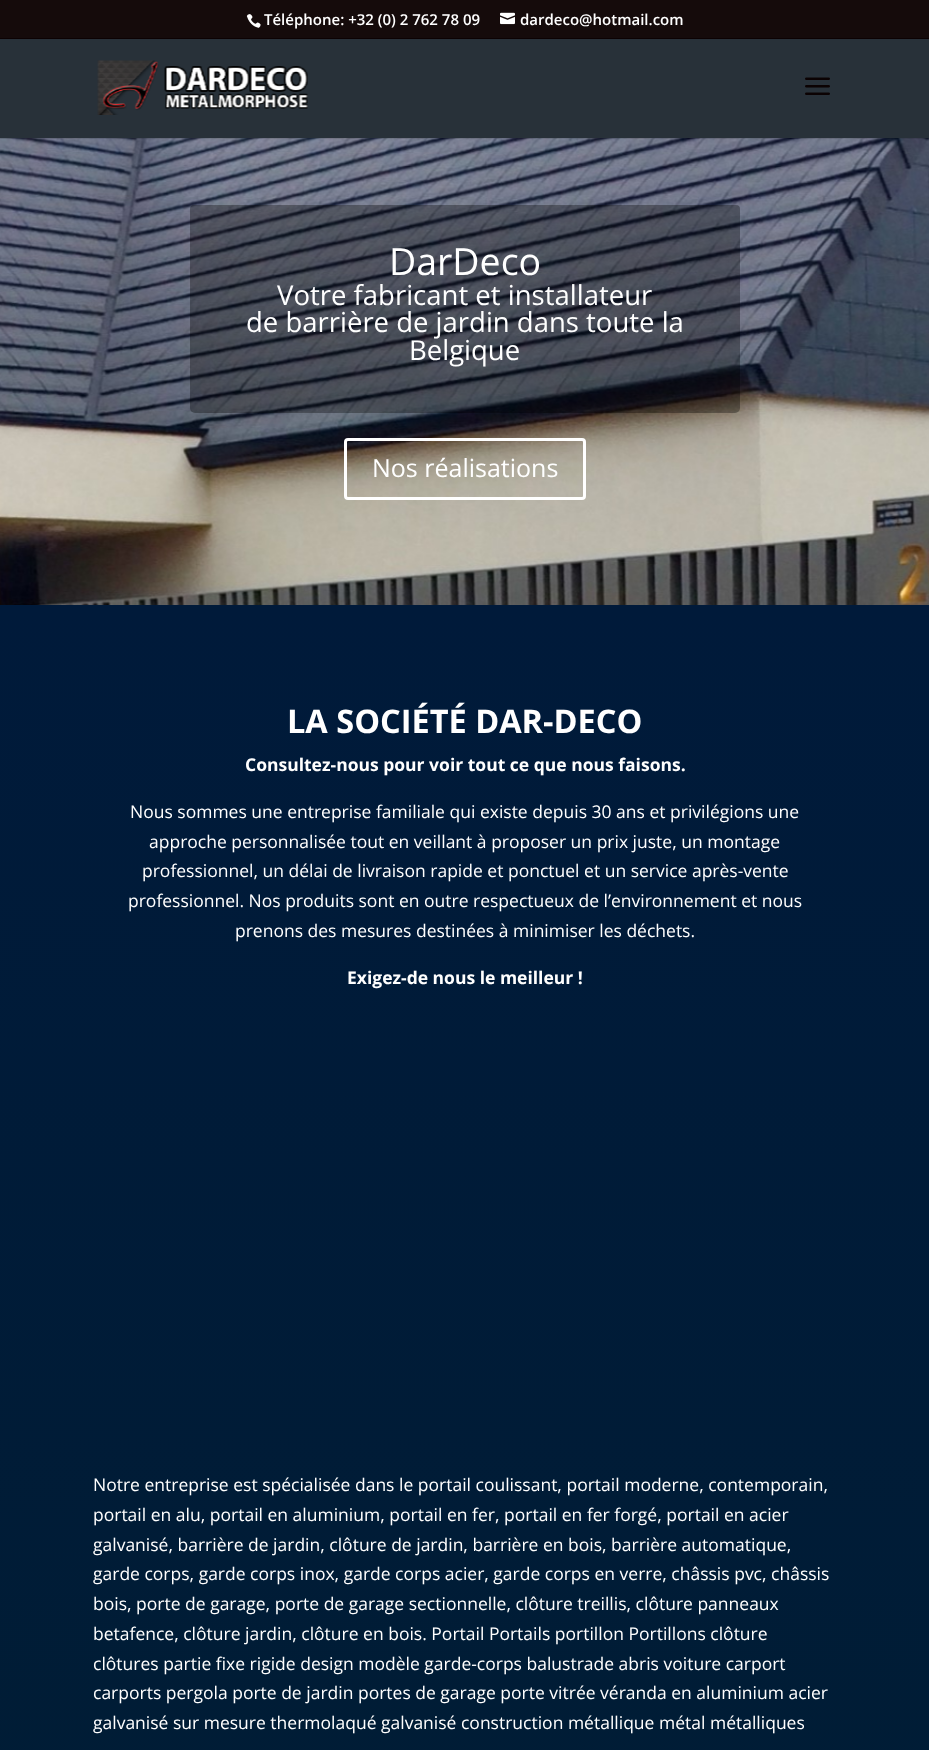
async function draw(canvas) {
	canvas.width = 929;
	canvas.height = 1750;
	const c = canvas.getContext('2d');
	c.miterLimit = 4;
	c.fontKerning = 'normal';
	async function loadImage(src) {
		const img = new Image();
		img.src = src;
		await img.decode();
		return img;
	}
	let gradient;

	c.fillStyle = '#150b0b';
	c.fillRect(0, 0, 929, 1750);
	c.drawImage(await loadImage('img1.png'), 246, 14, 15, 14);
	c.font = '600 15px Open Sans';
	c.fillStyle = '#fff';
	c.fillText('Téléphone: +32 (0) 2 762 78 09', 264, 25);
	c.drawImage(await loadImage('img2.png'), 500, 12, 15, 13);
	c.fillText('dardeco@hotmail.com', 520, 25);
	c.drawImage(await loadImage('img5.png'), 0, 138, 929, 467);
	for (const [x, y, w, h, color] of [
		[0, 138, 929, 1, '#0000001a'],
		[0, 39, 929, 99, '#283139'],
		[0, 38, 929, 1, '#0c0203'],
	]) {
		c.fillStyle = color;
		c.fillRect(x, y, w, h);
	}
	c.drawImage(await loadImage('img3.png'), 97, 60, 211, 55);
	c.drawImage(await loadImage('img4.png'), 805, 77, 25, 18);
	c.fillStyle = '#00000052';
	c.beginPath();
	c.roundRect(190, 205, 550, 75, [4, 4, 0, 0]);
	c.fill();
	c.font = '37.5px Open Sans';
	c.fillStyle = '#fff';
	c.fillText('DarDeco', 389, 275);
	c.fillStyle = '#00000052';
	c.beginPath();
	c.roundRect(190, 280, 550, 133, [0, 0, 5, 5]);
	c.fill();
	c.font = '27.5px Open Sans';
	c.fillStyle = '#fff';
	for (const [text, x, y] of [
		['Votre fabricant et installateur', 277, 305],
		['de barrière de jardin dans toute la', 246, 332],
		['Belgique', 409, 360],
	]) {
		c.fillText(text, x, y);
	}
	c.beginPath();
	c.roundRect(345.5, 439.5, 239, 59, 2.5);
	c.strokeStyle = '#fff';
	c.lineWidth = 3;
	c.stroke();
	c.font = '25px Open Sans';
	c.fillText('Nos réalisations', 372, 477);
	gradient = c.createLinearGradient(465, 605, 465, 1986);
	gradient.addColorStop(0, '#001a3a');
	gradient.addColorStop(1, '#001d35');
	c.fillStyle = gradient;
	c.fillRect(0, 605, 929, 1145);
	c.font = 'bold 32.5px Open Sans';
	c.fillStyle = '#fff';
	c.fillText('LA SOCIÉTÉ DAR-DECO', 287, 733);
	c.font = 'bold 17.5px Open Sans';
	c.fillText('Consultez-nous pour voir tout ce que nous faisons.', 245, 771);
	c.font = '17.5px Open Sans';
	for (const [text, x, y] of [
		['Nous sommes une entreprise familiale qui existe depuis 30 ans et privilégions une', 130, 818],
		['approche personnalisée tout en veillant à proposer un prix juste, un montage', 149, 848],
		['professionnel, un délai de livraison rapide et ponctuel et un service après-vente', 142, 877],
		['professionnel. Nos produits sont en outre respectueux de l’environnement et nous', 128, 907],
		['prenons des mesures destinées à minimiser les déchets.', 235, 937],
	]) {
		c.fillText(text, x, y);
	}
	c.font = 'bold 17.5px Open Sans';
	c.fillText('Exigez-de nous le meilleur !', 347, 984);
	c.font = '17.5px Open Sans';
	for (const [text, x, y] of [
		['Notre entreprise est spécialisée dans le portail coulissant, portail moderne, contemporain,', 93, 1491],
		['portail en alu, portail en aluminium, portail en fer, portail en fer forgé, portail en acier', 93, 1521],
		['galvanisé, barrière de jardin, clôture de jardin, barrière en bois, barrière automatique,', 93, 1551],
		['garde corps, garde corps inox, garde corps acier, garde corps en verre, châssis pvc, châssis', 93, 1580],
		['bois, porte de garage, porte de garage sectionnelle, clôture treillis, clôture panneaux', 93, 1610],
		['betafence, clôture jardin, clôture en bois. Portail Portails portillon Portillons clôture', 93, 1640],
		['clôtures partie fixe rigide design modèle garde-corps balustrade abris voiture carport', 93, 1670],
		['carports pergola porte de jardin portes de garage porte vitrée véranda en aluminium acier', 93, 1699],
		['galvanisé sur mesure thermolaqué galvanisé construction métallique métal métalliques', 93, 1729],
	]) {
		c.fillText(text, x, y);
	}
}

draw(document.querySelector('canvas'));
